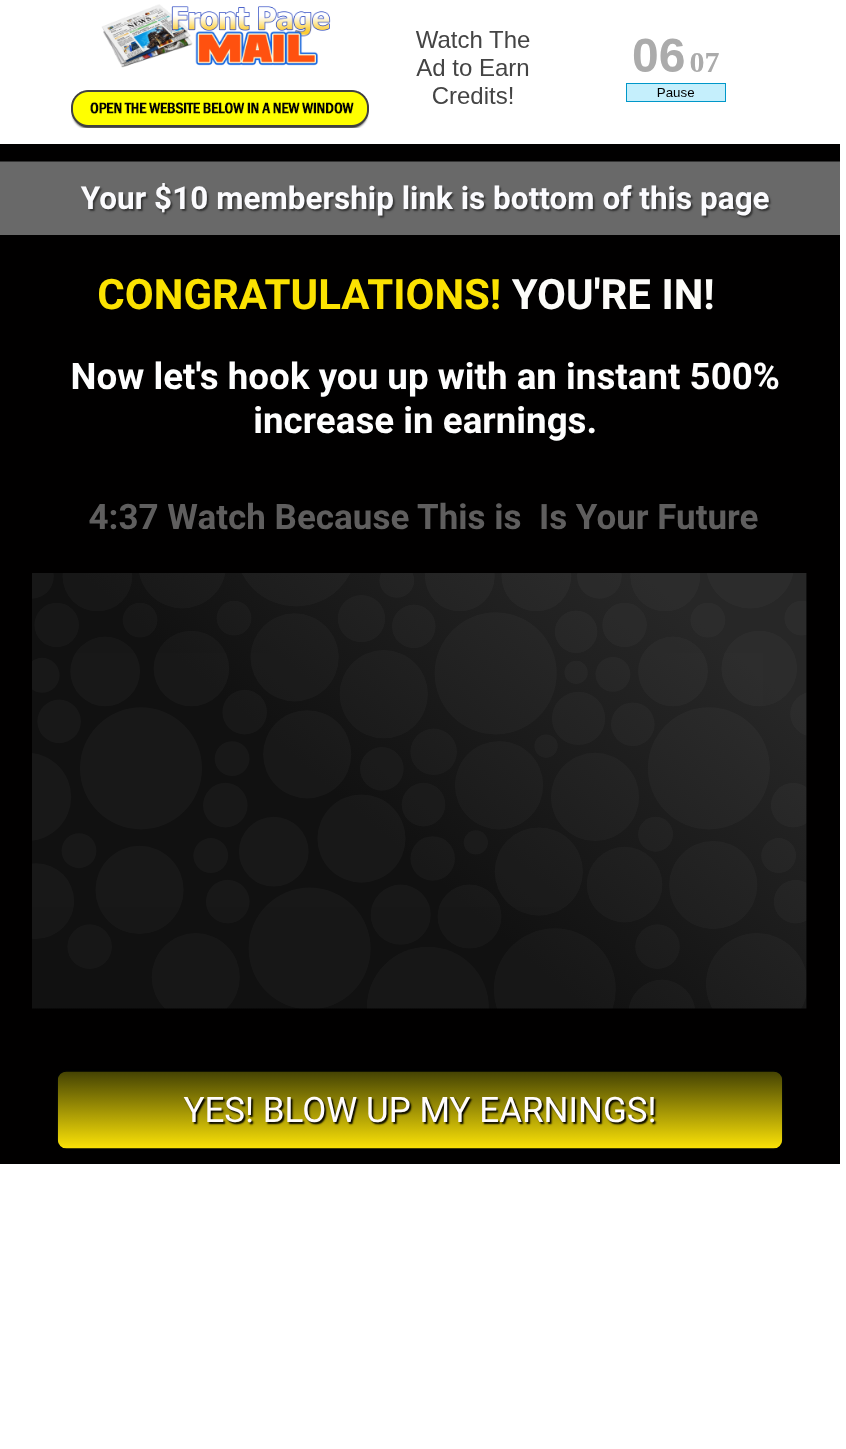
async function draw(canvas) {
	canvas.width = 846;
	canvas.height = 1449;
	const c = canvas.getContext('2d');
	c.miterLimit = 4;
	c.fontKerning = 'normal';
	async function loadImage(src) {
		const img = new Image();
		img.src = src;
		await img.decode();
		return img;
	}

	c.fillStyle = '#fff';
	c.fillRect(0, 0, 846, 1449);
	c.drawImage(await loadImage('img1.png'), 71, 4, 655, 124);
	c.drawImage(await loadImage('img2.png'), 0, 144, 840, 1020);
}

draw(document.querySelector('canvas'));
